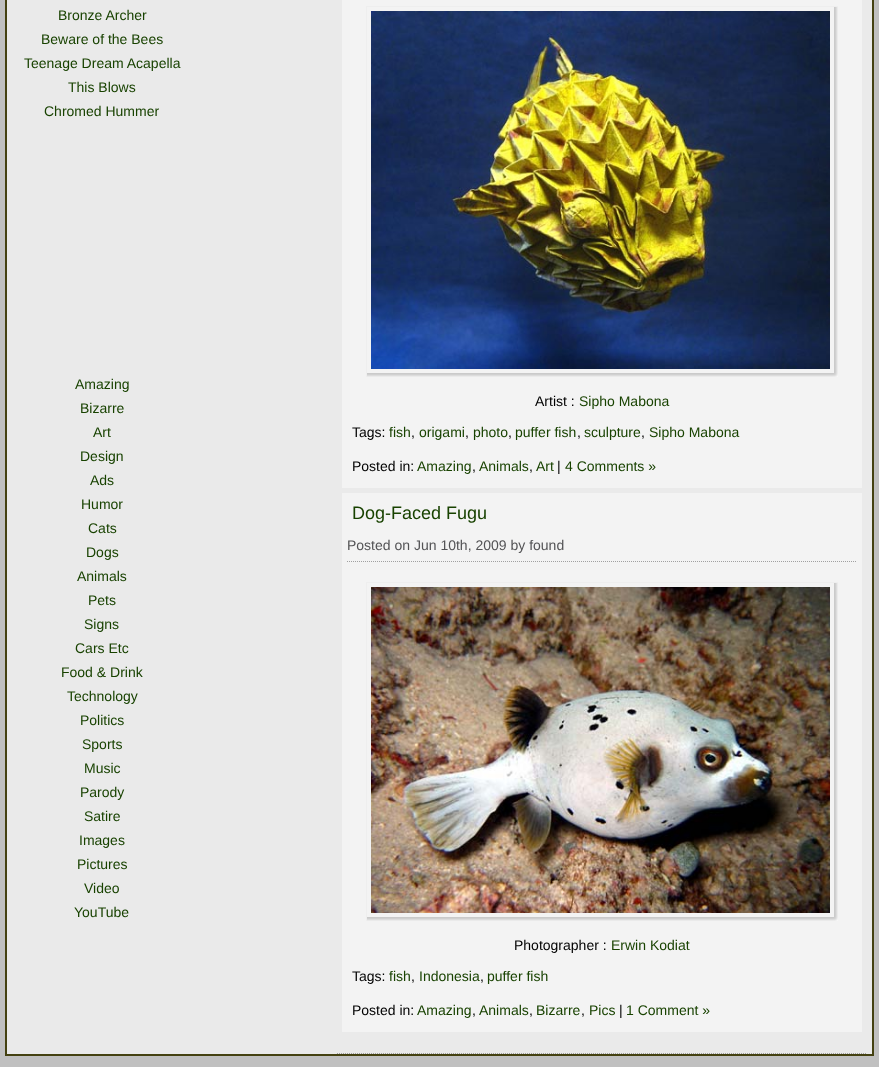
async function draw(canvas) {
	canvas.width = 879;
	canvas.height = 1067;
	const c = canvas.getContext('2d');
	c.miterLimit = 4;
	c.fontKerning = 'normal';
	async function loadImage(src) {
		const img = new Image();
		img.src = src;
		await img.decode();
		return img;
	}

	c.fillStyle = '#c0c0c0';
	c.fillRect(0, 0, 879, 1067);
	c.fillStyle = '#eaeaea';
	c.beginPath();
	c.rect(6, -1, 867, 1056);
	c.fill();
	c.strokeStyle = '#444111';
	c.lineWidth = 2;
	c.stroke();
	c.font = '14px Liberation Sans';
	c.fillStyle = '#184200';
	for (const [text, x, y] of [
		['Bronze Archer', 58, 20],
		['Beware of the Bees', 41, 44],
		['Teenage Dream Acapella', 24, 68],
		['This Blows', 68, 92],
		['Chromed Hummer', 44, 116],
		['Amazing', 75, 389],
		['Bizarre', 80, 413],
		['Art', 93, 437],
		['Design', 80, 461],
		['Ads', 90, 485],
		['Humor', 81, 509],
		['Cats', 88, 533],
		['Dogs', 86, 557],
		['Animals', 77, 581],
		['Pets', 88, 605],
		['Signs', 84, 629],
		['Cars Etc', 75, 653],
		['Food & Drink', 61, 677],
		['Technology', 67, 701],
		['Politics', 80, 725],
		['Sports', 82, 749],
		['Music', 84, 773],
		['Parody', 80, 797],
		['Satire', 84, 821],
		['Images', 79, 845],
		['Pictures', 77, 869],
		['Video', 84, 893],
		['YouTube', 74, 917],
	]) {
		c.fillText(text, x, y);
	}
	for (const [x, y, w, h, color] of [
		[342, 0, 520, 488, '#f3f3f3'],
		[366, 6, 472, 1, '#eee'],
		[366, 6, 1, 371, '#eee'],
	]) {
		c.fillStyle = color;
		c.fillRect(x, y, w, h);
	}
	c.drawImage(await loadImage('img1.png'), 367, 7, 471, 370);
	c.fillStyle = '#000';
	c.fillText('Artist :', 535, 406);
	c.fillStyle = '#184200';
	c.fillText('Sipho Mabona', 579, 406);
	c.fillStyle = '#000';
	c.fillText('Tags:', 352, 437);
	c.fillStyle = '#184200';
	c.fillText('fish', 389, 437);
	c.fillStyle = '#000';
	c.fillText(',', 411, 437);
	c.fillStyle = '#184200';
	c.fillText('origami', 419, 437);
	c.fillStyle = '#000';
	c.fillText(',', 465, 437);
	c.fillStyle = '#184200';
	c.fillText('photo', 473, 437);
	c.fillStyle = '#000';
	c.fillText(',', 508, 437);
	c.fillStyle = '#184200';
	c.fillText('puffer fish', 515, 437);
	c.fillStyle = '#000';
	c.fillText(',', 577, 437);
	c.fillStyle = '#184200';
	c.fillText('sculpture', 584, 437);
	c.fillStyle = '#000';
	c.fillText(',', 641, 437);
	c.fillStyle = '#184200';
	c.fillText('Sipho Mabona', 649, 437);
	c.fillStyle = '#000';
	c.fillText('Posted in:', 352, 471);
	c.fillStyle = '#184200';
	c.fillText('Amazing', 417, 471);
	c.fillStyle = '#000';
	c.fillText(',', 472, 471);
	c.fillStyle = '#184200';
	c.fillText('Animals', 479, 471);
	c.fillStyle = '#000';
	c.fillText(',', 529, 471);
	c.fillStyle = '#184200';
	c.fillText('Art', 536, 471);
	c.fillStyle = '#000';
	c.fillText('|', 557, 471);
	c.fillStyle = '#184200';
	c.fillText('4 Comments »', 565, 471);
	c.fillStyle = '#f3f3f3';
	c.fillRect(342, 493, 520, 539);
	c.font = '18px Liberation Sans';
	c.fillStyle = '#184200';
	c.fillText('Dog-Faced Fugu', 352, 519);
	c.beginPath();
	c.moveTo(347, 561.5);
	c.lineTo(857, 561.5);
	c.strokeStyle = '#a0a0a0';
	c.lineWidth = 1;
	c.setLineDash([1, 1]);
	c.stroke();
	c.font = '14px Liberation Sans';
	c.fillStyle = '#535355';
	c.fillText('Posted on Jun 10th, 2009 by found', 347, 550);
	c.fillStyle = '#eee';
	c.fillRect(366, 582, 472, 1);
	c.fillRect(366, 582, 1, 339);
	c.drawImage(await loadImage('img2.png'), 367, 583, 471, 338);
	c.fillStyle = '#000';
	c.fillText('Photographer :', 514, 950);
	c.fillStyle = '#184200';
	c.fillText('Erwin Kodiat', 611, 950);
	c.fillStyle = '#000';
	c.fillText('Tags:', 352, 981);
	c.fillStyle = '#184200';
	c.fillText('fish', 389, 981);
	c.fillStyle = '#000';
	c.fillText(',', 411, 981);
	c.fillStyle = '#184200';
	c.fillText('Indonesia', 419, 981);
	c.fillStyle = '#000';
	c.fillText(',', 480, 981);
	c.fillStyle = '#184200';
	c.fillText('puffer fish', 487, 981);
	c.fillStyle = '#000';
	c.fillText('Posted in:', 352, 1015);
	c.fillStyle = '#184200';
	c.fillText('Amazing', 417, 1015);
	c.fillStyle = '#000';
	c.fillText(',', 472, 1015);
	c.fillStyle = '#184200';
	c.fillText('Animals', 479, 1015);
	c.fillStyle = '#000';
	c.fillText(',', 529, 1015);
	c.fillStyle = '#184200';
	c.fillText('Bizarre', 536, 1015);
	c.fillStyle = '#000';
	c.fillText(',', 581, 1015);
	c.fillStyle = '#184200';
	c.fillText('Pics', 589, 1015);
	c.fillStyle = '#000';
	c.fillText('|', 619, 1015);
	c.fillStyle = '#184200';
	c.fillText('1 Comment »', 626, 1015);
	c.beginPath();
	c.moveTo(337, 1053.5);
	c.lineTo(867, 1053.5);
	c.stroke();
}

draw(document.querySelector('canvas'));
